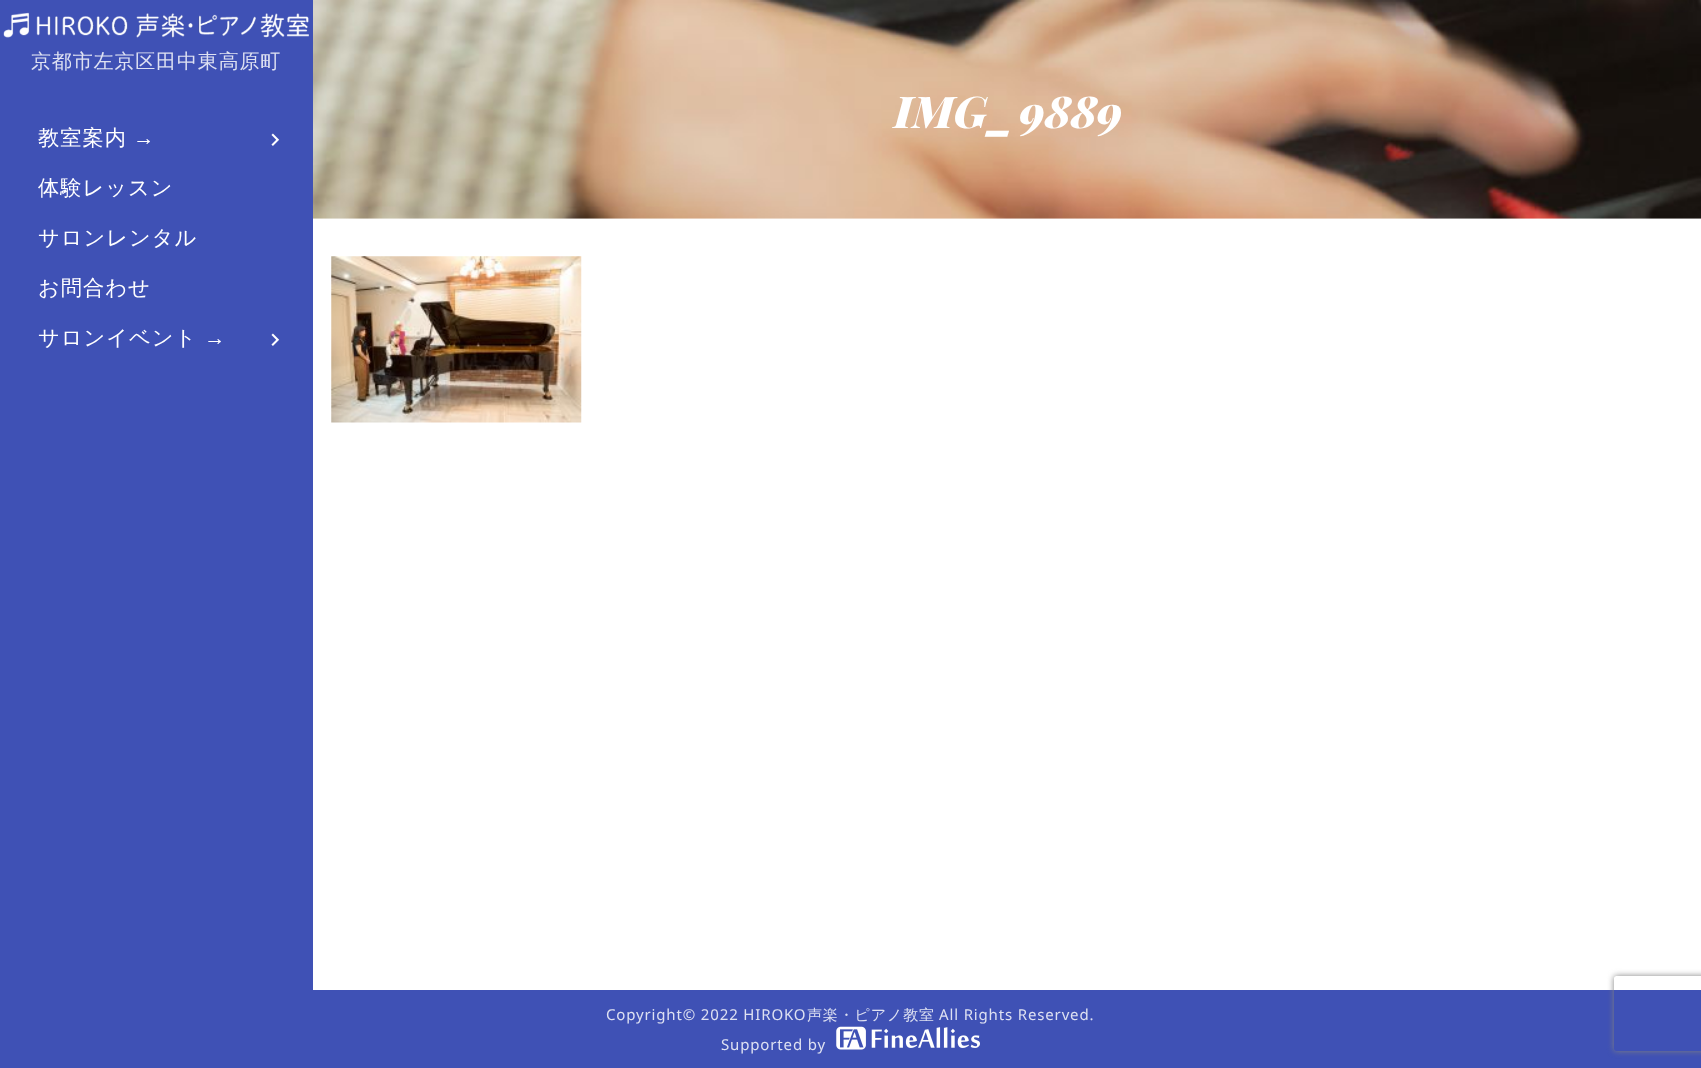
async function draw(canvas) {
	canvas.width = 1701;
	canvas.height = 1068;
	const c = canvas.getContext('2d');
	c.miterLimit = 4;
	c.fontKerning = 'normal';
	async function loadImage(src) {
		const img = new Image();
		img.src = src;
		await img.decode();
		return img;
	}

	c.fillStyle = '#fff';
	c.fillRect(0, 0, 1701, 1068);
	c.fillStyle = '#3f51b5';
	c.fillRect(0, 0, 313, 1068);
	c.drawImage(await loadImage('img1.png'), 3, 12, 306, 26);
	c.letterSpacing = '0.85px';
	c.font = '500 20px WenQuanYi Zen Hei';
	c.fillStyle = '#dee1f2';
	c.fillText('京都市左京区田中東高原町', 31, 68);
	c.letterSpacing = '1px';
	c.font = '500 21.25px WenQuanYi Zen Hei';
	c.fillStyle = '#fff';
	c.fillText('教室案内', 38, 145);
	c.font = '21.25px Liberation Serif';
	c.fillText('→', 133, 145);
	c.drawImage(await loadImage('img2.png'), 271, 133, 9, 13);
	c.font = '500 21.25px WenQuanYi Zen Hei';
	for (const [text, x, y] of [
		['体験レッスン', 38, 195],
		['サロンレンタル', 38, 245],
		['お問合わせ', 38, 295],
		['サロンイベント', 38, 345],
	]) {
		c.fillText(text, x, y);
	}
	c.font = '21.25px Liberation Serif';
	c.fillText('→', 204, 345);
	c.drawImage(await loadImage('img2.png'), 271, 333, 9, 13);
	c.drawImage(await loadImage('img3.png'), 313, 0, 1388, 219);
	c.letterSpacing = '0px';
	c.font = 'italic 900 43.75px Playfair Display';
	c.fillText('IMG_9889', 894, 128);
	c.drawImage(await loadImage('img4.png'), 331, 256, 251, 167);
	c.fillStyle = '#3f51b5';
	c.fillRect(313, 990, 1388, 78);
	c.letterSpacing = '0.85px';
	c.font = '15px Noto Sans';
	c.fillStyle = '#dee1f2';
	c.fillText('Copyright© 2022 HIROKO', 606, 1020);
	c.font = '500 15px WenQuanYi Zen Hei';
	c.fillText('声楽・ピアノ教室', 807, 1020);
	c.font = '15px Noto Sans';
	c.fillText('All Rights Reserved.', 939, 1020);
	c.fillText('Supported by', 721, 1050);
	c.drawImage(await loadImage('img5.png'), 836, 1026, 144, 24);
	c.save();
	c.beginPath();
	c.moveTo(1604, 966);
	c.lineTo(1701, 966);
	c.lineTo(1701, 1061);
	c.lineTo(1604, 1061);
	c.closePath();
	c.moveTo(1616.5, 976);
	c.lineTo(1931.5, 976);
	c.bezierCurveTo(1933, 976, 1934, 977, 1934, 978.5);
	c.lineTo(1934, 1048.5);
	c.bezierCurveTo(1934, 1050, 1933, 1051, 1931.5, 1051);
	c.lineTo(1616.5, 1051);
	c.bezierCurveTo(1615, 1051, 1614, 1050, 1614, 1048.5);
	c.lineTo(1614, 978.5);
	c.bezierCurveTo(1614, 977, 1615, 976, 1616.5, 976);
	c.closePath();
	c.clip('evenodd');
	c.fillStyle = '#808080';
	c.filter = 'blur(3px)';
	c.beginPath();
	c.roundRect(1614, 976, 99, 75, 2.5);
	c.fill();
	c.filter = 'none';
	c.restore();
}

draw(document.querySelector('canvas'));
